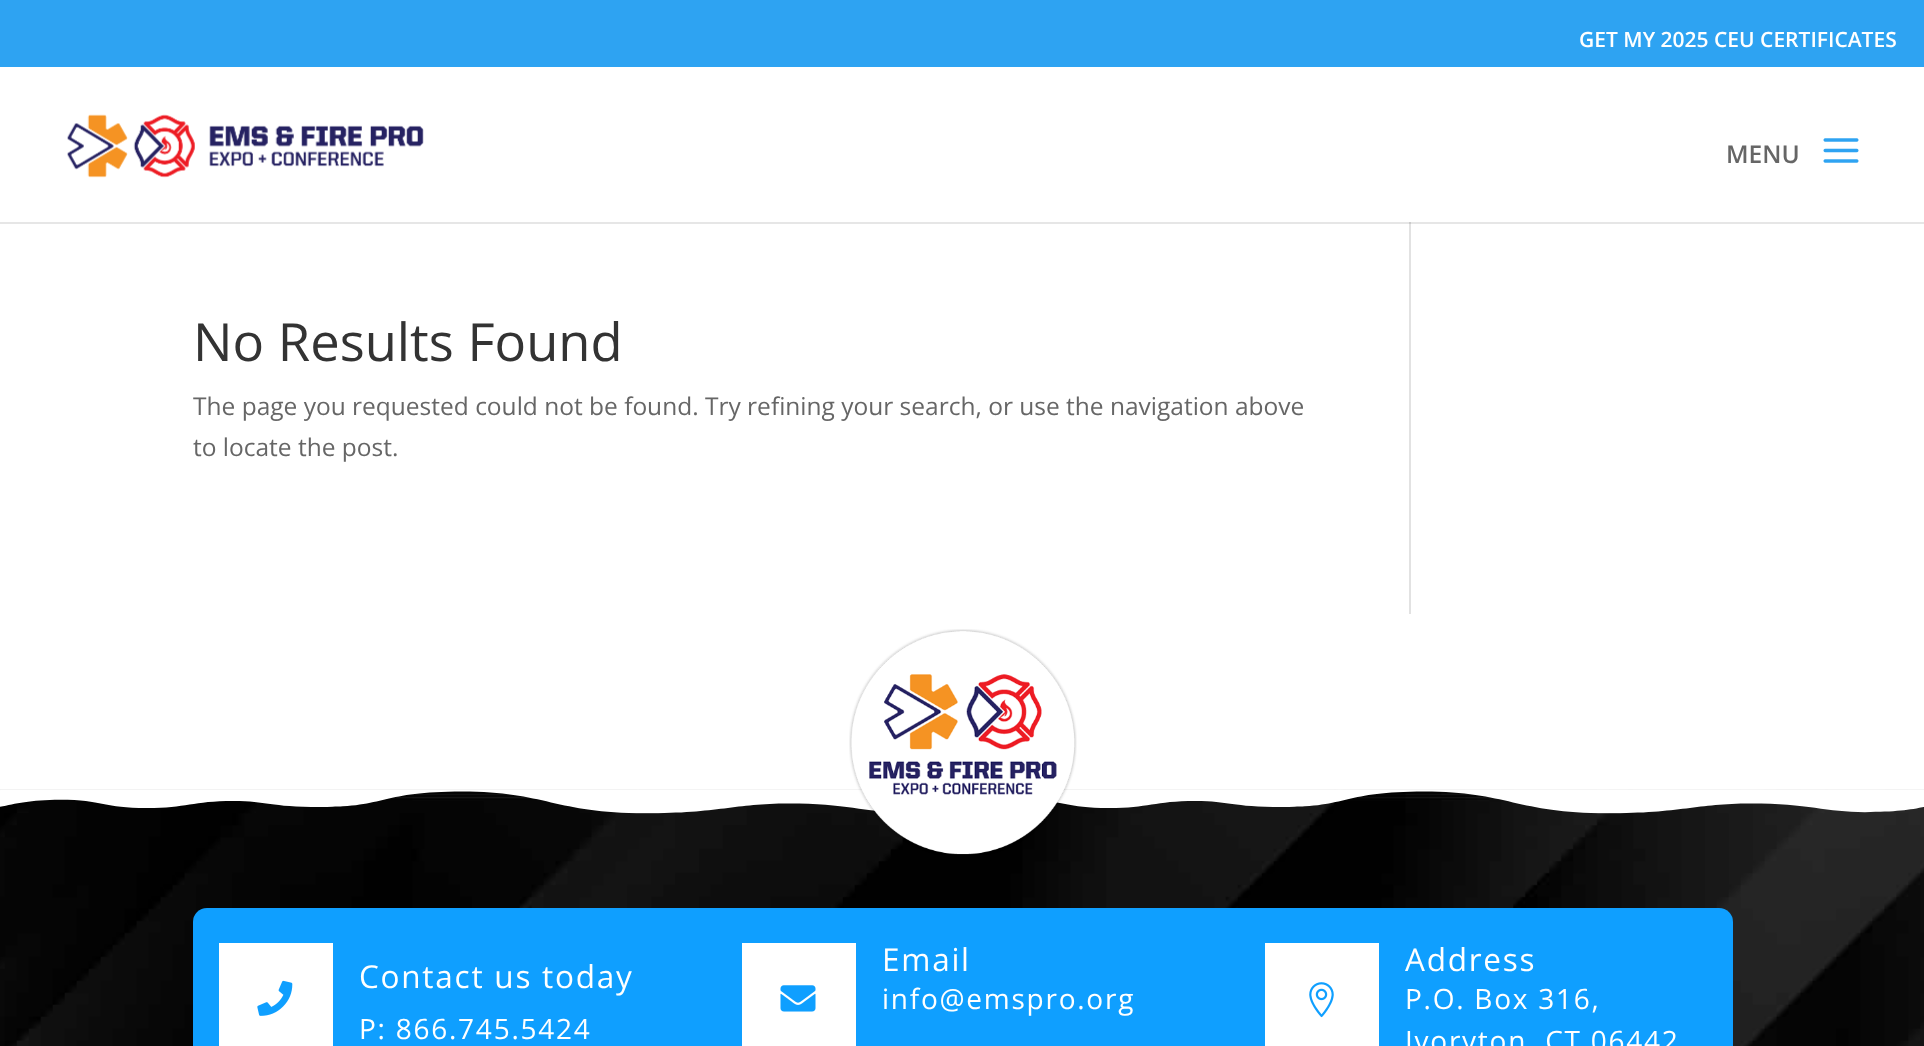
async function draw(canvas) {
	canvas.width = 1924;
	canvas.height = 1046;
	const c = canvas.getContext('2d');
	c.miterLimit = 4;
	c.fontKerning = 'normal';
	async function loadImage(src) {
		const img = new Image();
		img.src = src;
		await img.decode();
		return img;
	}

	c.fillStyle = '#fff';
	c.fillRect(0, 0, 1924, 1046);
	c.fillStyle = '#e6e6e6';
	c.fillRect(0, 222, 1924, 2);
	c.fillStyle = '#2ea3f2';
	c.fillRect(0, 0, 1924, 67);
	c.font = '600 21px Open Sans';
	c.fillStyle = '#fff';
	c.fillText('GET MY 2025 CEU CERTIFICATES', 1579, 47);
	c.drawImage(await loadImage('img1.png'), 67, 114, 357, 64);
	c.font = '600 24.5px Open Sans';
	c.fillStyle = '#666';
	c.fillText('MENU', 1726, 163);
	c.drawImage(await loadImage('img2.png'), 1823, 138, 36, 25);
	c.font = '52.5px Open Sans';
	c.fillStyle = '#333';
	c.fillText('No Results Found', 193, 361);
	c.font = '24.5px Open Sans';
	c.fillStyle = '#666';
	c.fillText('The page you requested could not be found. Try refining your search, or use the navigation above', 193, 415);
	c.fillText('to locate the post.', 193, 456);
	c.fillStyle = '#e2e2e2';
	c.fillRect(1409, 224, 2, 390);
	c.fillStyle = '#cbcbcb';
	c.fillRect(1409, 222, 2, 2);
	c.drawImage(await loadImage('img3.png'), 0, 789, 1924, 257);
	c.drawImage(await loadImage('img5.png'), 0, 789, 1924, 25);
	c.drawImage(await loadImage('img4.png'), 849, 629, 228, 226);
	c.fillStyle = '#0f9fff';
	c.beginPath();
	c.roundRect(193, 908, 1540, 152, 14);
	c.fill();
	c.fillStyle = '#fff';
	c.beginPath();
	c.rect(231.5, 955.5, 89, 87);
	c.fill();
	c.strokeStyle = '#fff';
	c.lineWidth = 25;
	c.stroke();
	c.drawImage(await loadImage('img6.png'), 257, 980, 36, 36);
	c.letterSpacing = '1.75px';
	c.font = '31.5px Open Sans';
	c.fillText('Contact us today', 359, 988);
	c.font = '28px Open Sans';
	c.fillText('P: 866.745.5424', 359, 1039);
	c.beginPath();
	c.rect(754.5, 955.5, 89, 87);
	c.fill();
	c.stroke();
	c.drawImage(await loadImage('img7.png'), 780, 985, 36, 27);
	c.font = '31.5px Open Sans';
	c.fillText('Email', 882, 971);
	c.font = '28px Open Sans';
	c.fillText('info@emspro.org', 882, 1009);
	c.beginPath();
	c.rect(1277.5, 955.5, 89, 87);
	c.fill();
	c.stroke();
	c.drawImage(await loadImage('img8.png'), 1309, 982, 25, 36);
	c.font = '31.5px Open Sans';
	c.fillText('Address', 1405, 971);
	c.font = '28px Open Sans';
	c.fillText('P.O. Box 316,', 1405, 1009);
	c.fillText('Ivoryton, CT 06442', 1405, 1051);
}

draw(document.querySelector('canvas'));
